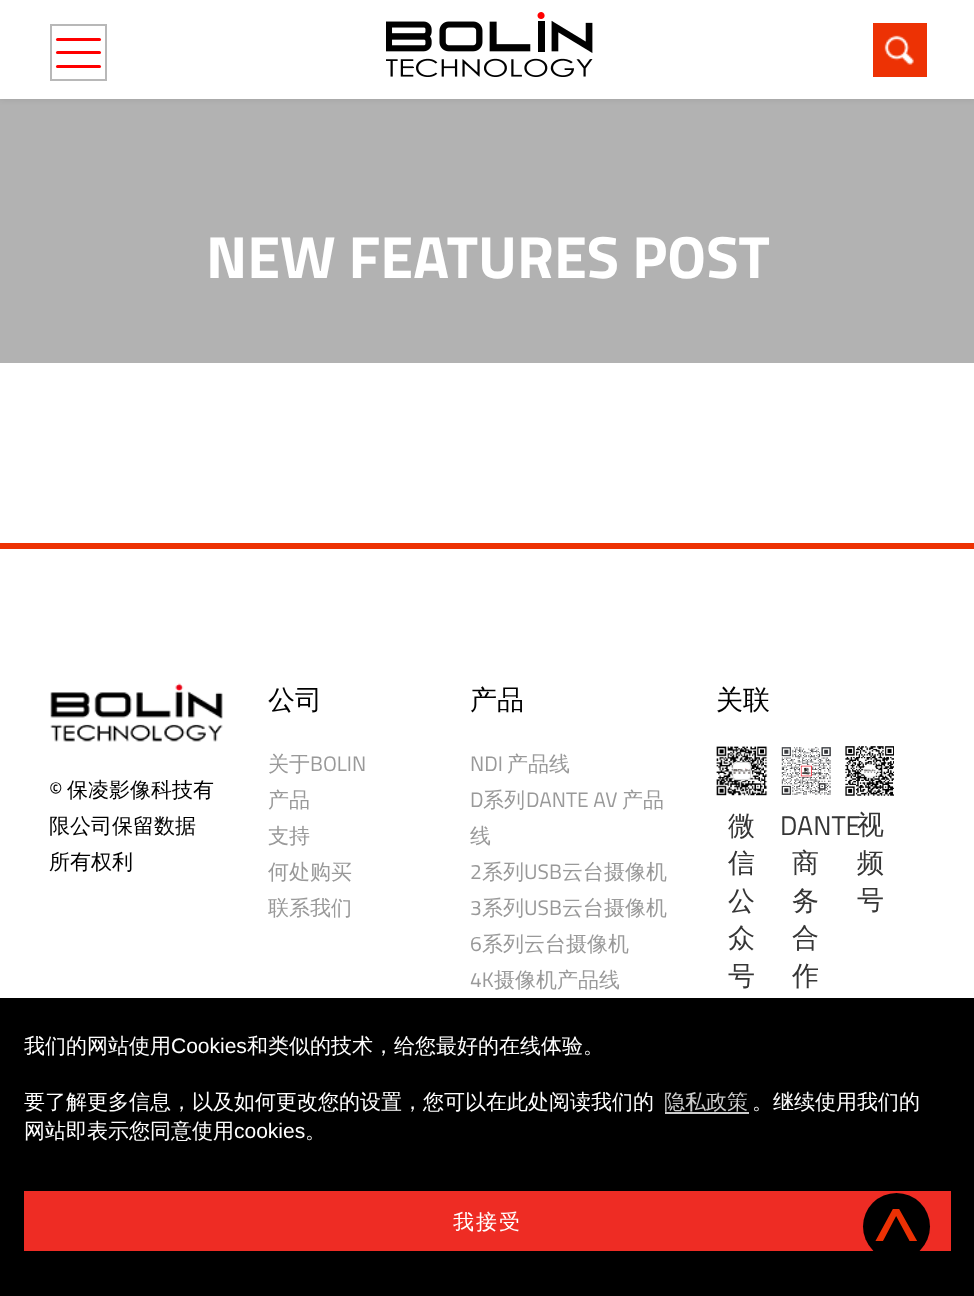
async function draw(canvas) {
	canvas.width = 974;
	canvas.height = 1296;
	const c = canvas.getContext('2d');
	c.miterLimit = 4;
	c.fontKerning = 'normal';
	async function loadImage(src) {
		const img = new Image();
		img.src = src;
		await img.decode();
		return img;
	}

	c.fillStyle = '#fff';
	c.fillRect(0, 0, 974, 1296);
	c.fillStyle = '#b2b2b2';
	c.fillRect(0, 99, 974, 264);
	c.fillStyle = '#0000001a';
	c.filter = 'blur(3px)';
	c.beginPath();
	c.rect(0, 0, 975, 99);
	c.fill();
	c.filter = 'none';
	c.fillStyle = '#fff';
	c.fillRect(0, 0, 974, 99);
	c.strokeStyle = '#b8b8b8';
	c.lineWidth = 2;
	c.strokeRect(51, 25, 55, 55);
	c.fillStyle = '#f00';
	c.beginPath();
	c.roundRect(56, 38, 45, 3, 1.5);
	c.fill();
	c.beginPath();
	c.roundRect(56, 51, 45, 3, 1.5);
	c.fill();
	c.beginPath();
	c.roundRect(56, 65, 45, 3, 1.5);
	c.fill();
	c.drawImage(await loadImage('img1.png'), 386, 12, 207, 65);
	c.fillStyle = '#ed3204';
	c.fillRect(873, 23, 54, 54);
	c.drawImage(await loadImage('img2.png'), 884, 35, 30, 30);
	c.font = 'bold 59.5px Titillium Web';
	c.fillStyle = '#fff';
	c.fillText('NEW FEATURES POST', 206, 278);
	c.fillStyle = '#ed3204';
	c.fillRect(0, 543, 974, 6);
	c.drawImage(await loadImage('img3.png'), 50, 683, 173, 59);
	c.font = '21px Titillium Web';
	c.fillStyle = '#000';
	c.fillText('©', 49, 797);
	c.font = '500 21px WenQuanYi Zen Hei';
	for (const [text, x, y] of [
		['保凌影像科技有', 67, 797],
		['限公司保留数据', 49, 833],
		['所有权利', 49, 869],
	]) {
		c.fillText(text, x, y);
	}
	c.font = '500 27px WenQuanYi Zen Hei';
	c.fillText('公司', 268, 709);
	c.font = '500 21px WenQuanYi Zen Hei';
	c.fillStyle = '#999';
	c.fillText('关于', 268, 771);
	c.font = '21px Titillium Web';
	c.fillText('BOLIN', 310, 771);
	c.font = '500 21px WenQuanYi Zen Hei';
	for (const [text, x, y] of [
		['产品', 268, 807],
		['支持', 268, 843],
		['何处购买', 268, 879],
		['联系我们', 268, 915],
	]) {
		c.fillText(text, x, y);
	}
	c.font = '500 27px WenQuanYi Zen Hei';
	c.fillStyle = '#000';
	c.fillText('产品', 470, 709);
	c.font = '21px Titillium Web';
	c.fillStyle = '#999';
	c.fillText('NDI', 470, 771);
	c.font = '500 21px WenQuanYi Zen Hei';
	c.fillText('产品线', 507, 771);
	c.font = '21px Titillium Web';
	c.fillText('D', 470, 807);
	c.font = '500 21px WenQuanYi Zen Hei';
	c.fillText('系列', 483, 807);
	c.font = '21px Titillium Web';
	c.fillText('DANTE AV', 526, 807);
	c.font = '500 21px WenQuanYi Zen Hei';
	c.fillText('产品', 622, 807);
	c.fillText('线', 470, 843);
	c.font = '21px Titillium Web';
	c.fillText('2', 470, 879);
	c.font = '500 21px WenQuanYi Zen Hei';
	c.fillText('系列', 482, 879);
	c.font = '21px Titillium Web';
	c.fillText('USB', 524, 879);
	c.font = '500 21px WenQuanYi Zen Hei';
	c.fillText('云台摄像机', 562, 879);
	c.font = '21px Titillium Web';
	c.fillText('3', 470, 915);
	c.font = '500 21px WenQuanYi Zen Hei';
	c.fillText('系列', 482, 915);
	c.font = '21px Titillium Web';
	c.fillText('USB', 524, 915);
	c.font = '500 21px WenQuanYi Zen Hei';
	c.fillText('云台摄像机', 562, 915);
	c.font = '21px Titillium Web';
	c.fillText('6', 470, 951);
	c.font = '500 21px WenQuanYi Zen Hei';
	c.fillText('系列云台摄像机', 482, 951);
	c.font = '21px Titillium Web';
	c.fillText('4K', 470, 987);
	c.font = '500 21px WenQuanYi Zen Hei';
	c.fillText('摄像机产品线', 494, 987);
	c.font = '500 27px WenQuanYi Zen Hei';
	c.fillStyle = '#000';
	c.fillText('关联', 716, 709);
	c.drawImage(await loadImage('img4.png'), 716, 746, 52, 50);
	c.fillStyle = '#353535';
	for (const [text, x, y] of [
		['微', 728, 835],
		['信', 728, 872],
		['公', 728, 910],
		['众', 728, 947],
		['号', 728, 985],
	]) {
		c.fillText(text, x, y);
	}
	c.drawImage(await loadImage('img5.png'), 781, 747, 50, 48);
	c.font = '27px Titillium Web';
	c.fillText('DANTE', 780, 835);
	c.font = '500 27px WenQuanYi Zen Hei';
	for (const [text, x, y] of [
		['商', 792, 872],
		['务', 792, 910],
		['合', 792, 947],
		['作', 792, 985],
	]) {
		c.fillText(text, x, y);
	}
	c.drawImage(await loadImage('img6.png'), 845, 746, 49, 50);
	for (const [text, x, y] of [
		['视', 857, 834],
		['频', 857, 872],
		['号', 857, 909],
	]) {
		c.fillText(text, x, y);
	}
	c.fillStyle = '#000';
	c.fillRect(0, 998, 974, 298);
	c.font = '500 21px WenQuanYi Zen Hei';
	c.fillStyle = '#fff';
	c.fillText('我们的网站使用', 24, 1053);
	c.font = '21px Liberation Sans';
	c.fillText('Cookies', 171, 1053);
	c.font = '500 21px WenQuanYi Zen Hei';
	c.fillText('和类似的技术，给您最好的在线体验。', 247, 1053);
	c.fillText('要了解更多信息，以及如何更改您的设置，您可以在此处阅读我们的', 24, 1109);
	c.fillStyle = '#ccc';
	c.fillText('隐私政策', 664, 1109);
	c.fillRect(665, 1112, 84, 2);
	c.fillStyle = '#fff';
	c.fillText('。继续使用我们的', 752, 1109);
	c.fillText('网站即表示您同意使用', 24, 1138);
	c.font = '21px Liberation Sans';
	c.fillText('cookies', 234, 1138);
	c.font = '500 21px WenQuanYi Zen Hei';
	c.fillText('。', 305, 1138);
	c.fillStyle = '#ee2c24';
	c.fillRect(24, 1191, 927, 60);
	c.letterSpacing = '2px';
	c.fillStyle = '#fff';
	c.fillText('我接受', 453, 1229);
	c.fillStyle = '#000';
	c.beginPath();
	c.arc(896.5, 1226.5, 33.5, 0, 2 * Math.PI);
	c.fill();
	c.letterSpacing = '0px';
	c.font = '94px Titillium Web';
	c.fillStyle = '#ec3104';
	c.fillText('^', 870, 1271);
}

draw(document.querySelector('canvas'));
